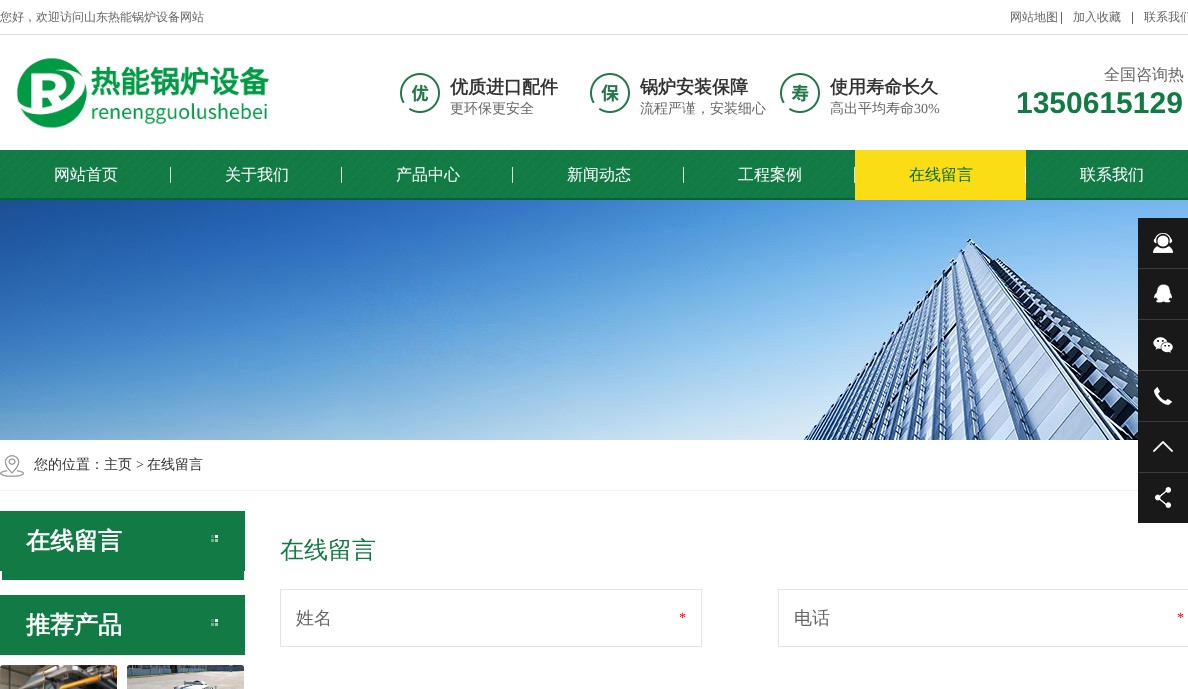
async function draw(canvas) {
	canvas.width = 1188;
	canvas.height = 689;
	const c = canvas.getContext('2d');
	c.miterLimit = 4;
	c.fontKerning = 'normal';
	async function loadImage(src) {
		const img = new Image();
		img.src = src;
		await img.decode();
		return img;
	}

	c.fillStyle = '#fff';
	c.fillRect(0, 0, 1188, 689);
	c.fillStyle = '#ddd';
	c.fillRect(0, 34, 1188, 1);
	c.font = '500 12px WenQuanYi Zen Hei';
	c.fillStyle = '#666';
	c.fillText('您好，欢迎访问山东热能锅炉设备网站', 0, 21);
	c.fillText('网站地图', 1010, 21);
	c.fillRect(1061, 12, 1, 12);
	c.fillText('加入收藏', 1073, 21);
	c.fillRect(1132, 12, 1, 12);
	c.fillText('联系我们', 1144, 21);
	c.drawImage(await loadImage('img1.png'), 16, 58, 253, 70);
	c.drawImage(await loadImage('img2.png'), 400, 73, 40, 40);
	c.font = 'bold 18px WenQuanYi Zen Hei';
	c.fillStyle = '#333';
	c.fillText('优质进口配件', 450, 93);
	c.font = '500 14px WenQuanYi Zen Hei';
	c.fillStyle = '#666';
	c.fillText('更环保更安全', 450, 113);
	c.drawImage(await loadImage('img3.png'), 590, 73, 40, 40);
	c.font = 'bold 18px WenQuanYi Zen Hei';
	c.fillStyle = '#333';
	c.fillText('锅炉安装保障', 640, 93);
	c.font = '500 14px WenQuanYi Zen Hei';
	c.fillStyle = '#666';
	c.fillText('流程严谨，安装细心', 640, 113);
	c.drawImage(await loadImage('img4.png'), 780, 73, 40, 40);
	c.font = 'bold 18px WenQuanYi Zen Hei';
	c.fillStyle = '#333';
	c.fillText('使用寿命长久', 830, 93);
	c.font = '500 14px WenQuanYi Zen Hei';
	c.fillStyle = '#666';
	c.fillText('高出平均寿命', 830, 113);
	c.font = '14px Liberation Serif';
	c.fillText('30%', 914, 113);
	c.font = '500 16px WenQuanYi Zen Hei';
	c.fillText('全国咨询热', 1104, 80);
	c.font = 'bold 30px Liberation Sans';
	c.fillStyle = '#127a44';
	c.fillText('1350615129', 1016, 113);
	c.drawImage(await loadImage('img5.png'), 0, 150, 1188, 50);
	c.fillStyle = '#ffffffcc';
	c.fillRect(170, 167, 1, 16);
	c.font = '500 16px WenQuanYi Zen Hei';
	c.fillStyle = '#fff';
	c.fillText('网站首页', 54, 180);
	c.fillStyle = '#ffffffcc';
	c.fillRect(341, 167, 1, 16);
	c.fillStyle = '#fff';
	c.fillText('关于我们', 225, 180);
	c.fillStyle = '#ffffffcc';
	c.fillRect(512, 167, 1, 16);
	c.fillStyle = '#fff';
	c.fillText('产品中心', 396, 180);
	c.fillStyle = '#ffffffcc';
	c.fillRect(683, 167, 1, 16);
	c.fillStyle = '#fff';
	c.fillText('新闻动态', 567, 180);
	c.fillStyle = '#ffffffcc';
	c.fillRect(854, 167, 1, 16);
	c.fillStyle = '#fff';
	c.fillText('工程案例', 738, 180);
	c.fillStyle = '#fadd15';
	c.fillRect(855, 150, 171, 50);
	c.fillStyle = '#fef8d0';
	c.fillRect(1025, 167, 1, 16);
	c.fillStyle = '#066c37';
	c.fillText('在线留言', 909, 180);
	c.fillStyle = '#fff';
	c.fillText('联系我们', 1080, 180);
	c.drawImage(await loadImage('img6.png'), 0, 200, 1188, 240);
	c.fillStyle = '#3b3b3b';
	c.fillRect(1138, 268, 50, 1);
	c.fillStyle = '#191919';
	c.fillRect(1138, 218, 50, 50);
	c.drawImage(await loadImage('img7.png'), 1153, 233, 20, 20);
	c.fillStyle = '#3b3b3b';
	c.fillRect(1138, 319, 50, 1);
	c.fillStyle = '#191919';
	c.fillRect(1138, 269, 50, 50);
	c.drawImage(await loadImage('img8.png'), 1154, 284, 18, 19);
	c.fillStyle = '#3b3b3b';
	c.fillRect(1138, 370, 50, 1);
	c.fillStyle = '#191919';
	c.fillRect(1138, 320, 50, 50);
	c.drawImage(await loadImage('img9.png'), 1153, 337, 20, 16);
	c.fillStyle = '#3b3b3b';
	c.fillRect(1138, 421, 50, 1);
	c.fillStyle = '#191919';
	c.fillRect(1138, 371, 50, 50);
	c.drawImage(await loadImage('img10.png'), 1154, 387, 18, 18);
	c.fillStyle = '#3b3b3b';
	c.fillRect(1138, 472, 50, 1);
	c.fillStyle = '#191919';
	c.fillRect(1138, 422, 50, 50);
	c.drawImage(await loadImage('img11.png'), 1153, 441, 20, 11);
	c.fillRect(1138, 473, 50, 50);
	c.drawImage(await loadImage('img12.png'), 1155, 487, 16, 21);
	c.fillStyle = '#f1f1f1';
	c.fillRect(0, 490, 1138, 1);
	c.drawImage(await loadImage('img13.png'), 0, 455, 24, 22);
	c.font = '500 14px WenQuanYi Zen Hei';
	c.fillStyle = '#333';
	c.fillText('您的位置：主页', 34, 469);
	c.font = '14px Liberation Serif';
	c.fillText('>', 136, 469);
	c.font = '500 14px WenQuanYi Zen Hei';
	c.fillText('在线留言', 147, 469);
	c.fillStyle = '#127a44';
	c.fillRect(2, 571, 242, 9);
	c.fillRect(0, 511, 245, 60);
	c.font = 'bold 24px WenQuanYi Zen Hei';
	c.fillStyle = '#fff';
	c.fillText('在线留言', 26, 549);
	c.drawImage(await loadImage('img14.png'), 211, 535, 7, 7);
	c.fillStyle = '#127a44';
	c.fillRect(0, 595, 245, 60);
	c.fillStyle = '#fff';
	c.fillText('推荐产品', 26, 633);
	c.drawImage(await loadImage('img14.png'), 211, 619, 7, 7);
	c.drawImage(await loadImage('img15.png'), 0, 665, 117, 24);
	c.drawImage(await loadImage('img16.png'), 127, 665, 117, 24);
	c.font = '500 24px WenQuanYi Zen Hei';
	c.fillStyle = '#127a44';
	c.fillText('在线留言', 280, 558);
	c.strokeStyle = '#e4e4e4';
	c.strokeRect(280.5, 589.5, 421, 57);
	c.font = '500 18px WenQuanYi Zen Hei';
	c.fillStyle = '#666';
	c.fillText('姓名', 296, 624);
	c.font = '14px Liberation Serif';
	c.fillStyle = '#f00';
	c.fillText('*', 679, 622);
	c.strokeRect(778.5, 589.5, 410, 57);
	c.font = '500 18px WenQuanYi Zen Hei';
	c.fillStyle = '#666';
	c.fillText('电话', 794, 624);
	c.font = '14px Liberation Serif';
	c.fillStyle = '#f00';
	c.fillText('*', 1177, 622);
}

draw(document.querySelector('canvas'));
